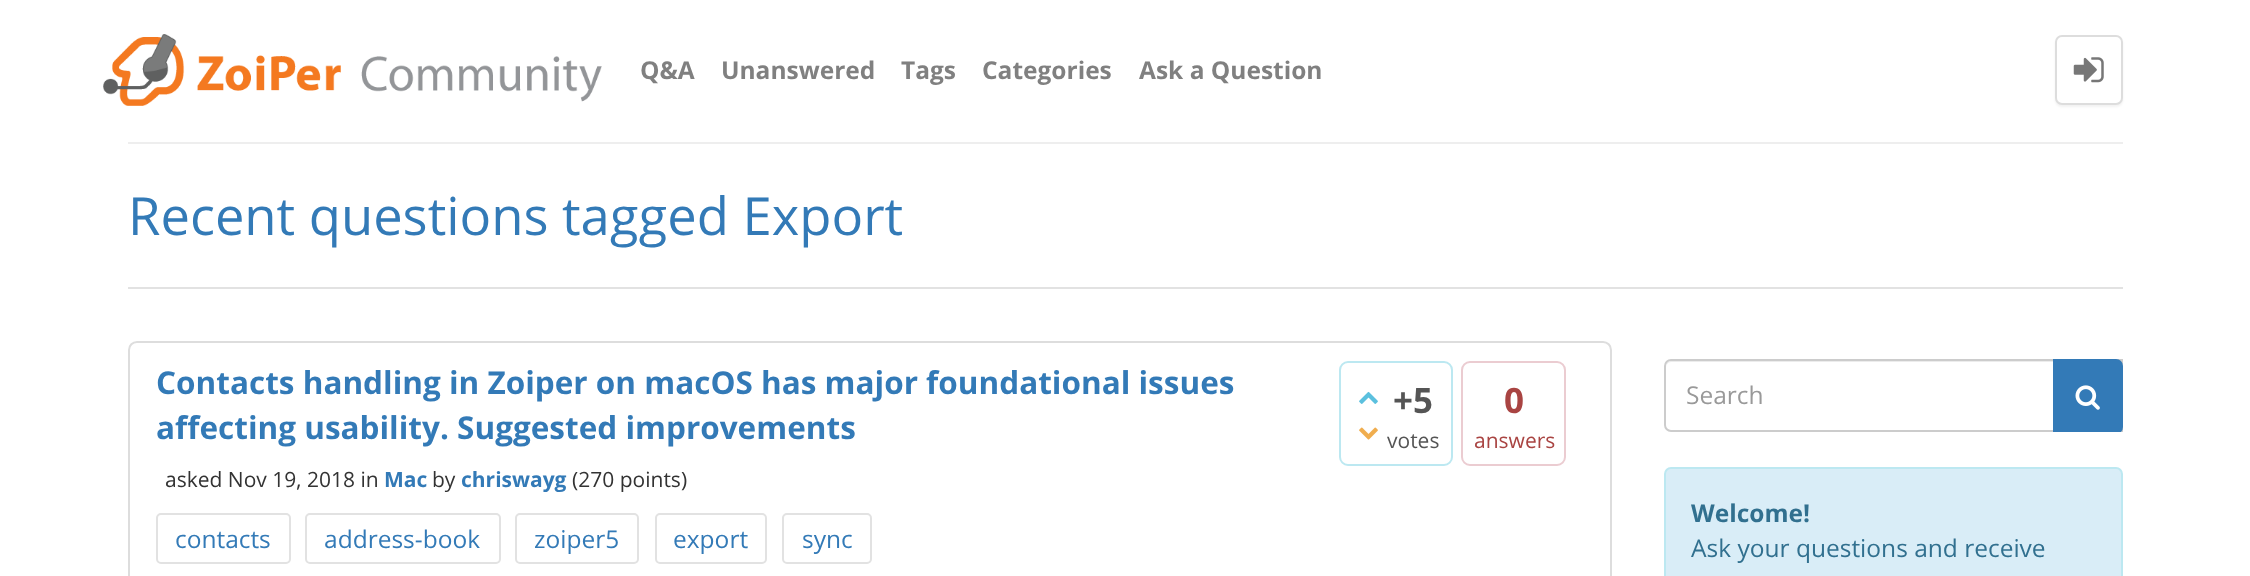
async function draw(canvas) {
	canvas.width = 2250;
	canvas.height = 576;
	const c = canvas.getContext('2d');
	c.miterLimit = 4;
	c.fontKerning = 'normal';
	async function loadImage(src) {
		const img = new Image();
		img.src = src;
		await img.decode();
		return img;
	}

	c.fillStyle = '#fff';
	c.fillRect(0, 0, 2250, 576);
	c.drawImage(await loadImage('img1.png'), 103, 34, 499, 72);
	c.font = 'bold 24.5px Open Sans';
	c.fillStyle = '#808080';
	for (const [text, x, y] of [
		['Q&A', 640, 79],
		['Unanswered', 721, 79],
		['Tags', 901, 79],
		['Categories', 982, 79],
		['Ask a Question', 1139, 79],
	]) {
		c.fillText(text, x, y);
	}
	c.fillStyle = '#0000000d';
	c.filter = 'blur(1px)';
	c.beginPath();
	c.roundRect(2055, 37, 68, 70, 7);
	c.fill();
	c.filter = 'none';
	c.fillStyle = '#fff';
	c.beginPath();
	c.roundRect(2056, 36, 66, 68, 6);
	c.fill();
	c.strokeStyle = '#ddd';
	c.lineWidth = 2;
	c.stroke();
	c.drawImage(await loadImage('img2.png'), 2073, 57, 31, 26);
	c.fillStyle = '#eee';
	c.fillRect(128, 142, 1995, 2);
	c.fillStyle = '#e2e2e2';
	c.fillRect(128, 287, 1995, 2);
	c.font = '52.5px Open Sans';
	c.fillStyle = '#337ab7';
	c.fillText('Recent questions tagged Export', 128, 235);
	c.beginPath();
	c.moveTo(137, 342);
	c.lineTo(1603, 342);
	c.bezierCurveTo(1607.5, 342, 1611, 345.5, 1611, 350);
	c.lineTo(1611, 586);
	c.lineTo(129, 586);
	c.lineTo(129, 350);
	c.bezierCurveTo(129, 345.5, 132.5, 342, 137, 342);
	c.closePath();
	c.stroke();
	c.font = 'bold 31.5px Open Sans';
	c.fillText('Contacts handling in Zoiper on macOS has major foundational issues', 156, 394);
	c.fillText('affecting usability. Suggested improvements', 156, 439);
	c.font = '21px Open Sans';
	c.fillStyle = '#333';
	c.fillText('asked Nov 19, 2018 in', 165, 487);
	c.font = 'bold 21px Open Sans';
	c.fillStyle = '#337ab7';
	c.fillText('Mac', 384, 487);
	c.font = '21px Open Sans';
	c.fillStyle = '#333';
	c.fillText('by', 432, 487);
	c.font = 'bold 21px Open Sans';
	c.fillStyle = '#337ab7';
	c.fillText('chriswayg', 461, 487);
	c.font = '21px Open Sans';
	c.fillStyle = '#333';
	c.fillText('(270 points)', 572, 487);
	c.beginPath();
	c.roundRect(157, 514, 133, 49, 4);
	c.strokeStyle = '#e2e2e2';
	c.stroke();
	c.font = '24.5px Open Sans';
	c.fillStyle = '#337ab7';
	c.fillText('contacts', 175, 548);
	c.beginPath();
	c.roundRect(306, 514, 194, 49, 4);
	c.stroke();
	c.fillText('address-book', 324, 548);
	c.beginPath();
	c.roundRect(516, 514, 122, 49, 4);
	c.stroke();
	c.fillText('zoiper5', 534, 548);
	c.beginPath();
	c.roundRect(656, 514, 110, 49, 4);
	c.stroke();
	c.fillText('export', 673, 548);
	c.beginPath();
	c.roundRect(783, 514, 88, 49, 4);
	c.stroke();
	c.fillText('sync', 802, 548);
	c.beginPath();
	c.roundRect(1340, 362, 112, 103, 8);
	c.strokeStyle = '#bce8f1';
	c.stroke();
	c.drawImage(await loadImage('img3.png'), 1359, 391, 19, 13);
	c.drawImage(await loadImage('img4.png'), 1359, 427, 19, 13);
	c.font = 'bold 35px Open Sans';
	c.fillStyle = '#555';
	c.fillText('+5', 1393, 413);
	c.font = '21px Open Sans';
	c.fillText('votes', 1387, 448);
	c.beginPath();
	c.roundRect(1462, 362, 103, 103, 8);
	c.strokeStyle = '#ebccd1';
	c.stroke();
	c.font = 'bold 35px Open Sans';
	c.fillStyle = '#a94442';
	c.fillText('0', 1504, 413);
	c.font = '21px Open Sans';
	c.fillText('answers', 1474, 448);
	c.fillStyle = '#ececec';
	c.beginPath();
	c.moveTo(1671, 362);
	c.lineTo(2121, 362);
	c.lineTo(2121, 361);
	c.lineTo(1671, 361);
	c.bezierCurveTo(1667, 361, 1666, 365, 1666, 368);
	c.bezierCurveTo(1666, 365, 1668, 362, 1671, 362);
	c.closePath();
	c.fill();
	c.beginPath();
	c.roundRect(1665, 360, 457, 71, [6, 0, 0, 6]);
	c.strokeStyle = '#ccc';
	c.stroke();
	c.font = '24.5px Open Sans';
	c.fillStyle = '#999';
	c.fillText('Search', 1686, 404);
	c.save();
	c.beginPath();
	c.rect(1664, 359, 459, 73);
	c.clip();
	c.fillStyle = '#337ab7';
	c.beginPath();
	c.roundRect(2053, 359, 70, 75, [0, 7, 7, 0]);
	c.fill();
	c.restore();
	c.drawImage(await loadImage('img5.png'), 2075, 385, 25, 25);
	c.fillStyle = '#d9edf7';
	c.beginPath();
	c.roundRect(1665, 468, 457, 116, 6);
	c.fill();
	c.strokeStyle = '#bce8f1';
	c.stroke();
	c.font = 'bold 24.5px Open Sans';
	c.fillStyle = '#31708f';
	c.fillText('Welcome!', 1691, 522);
	c.font = '24.5px Open Sans';
	c.fillText('Ask your questions and receive', 1691, 557);
}

draw(document.querySelector('canvas'));
